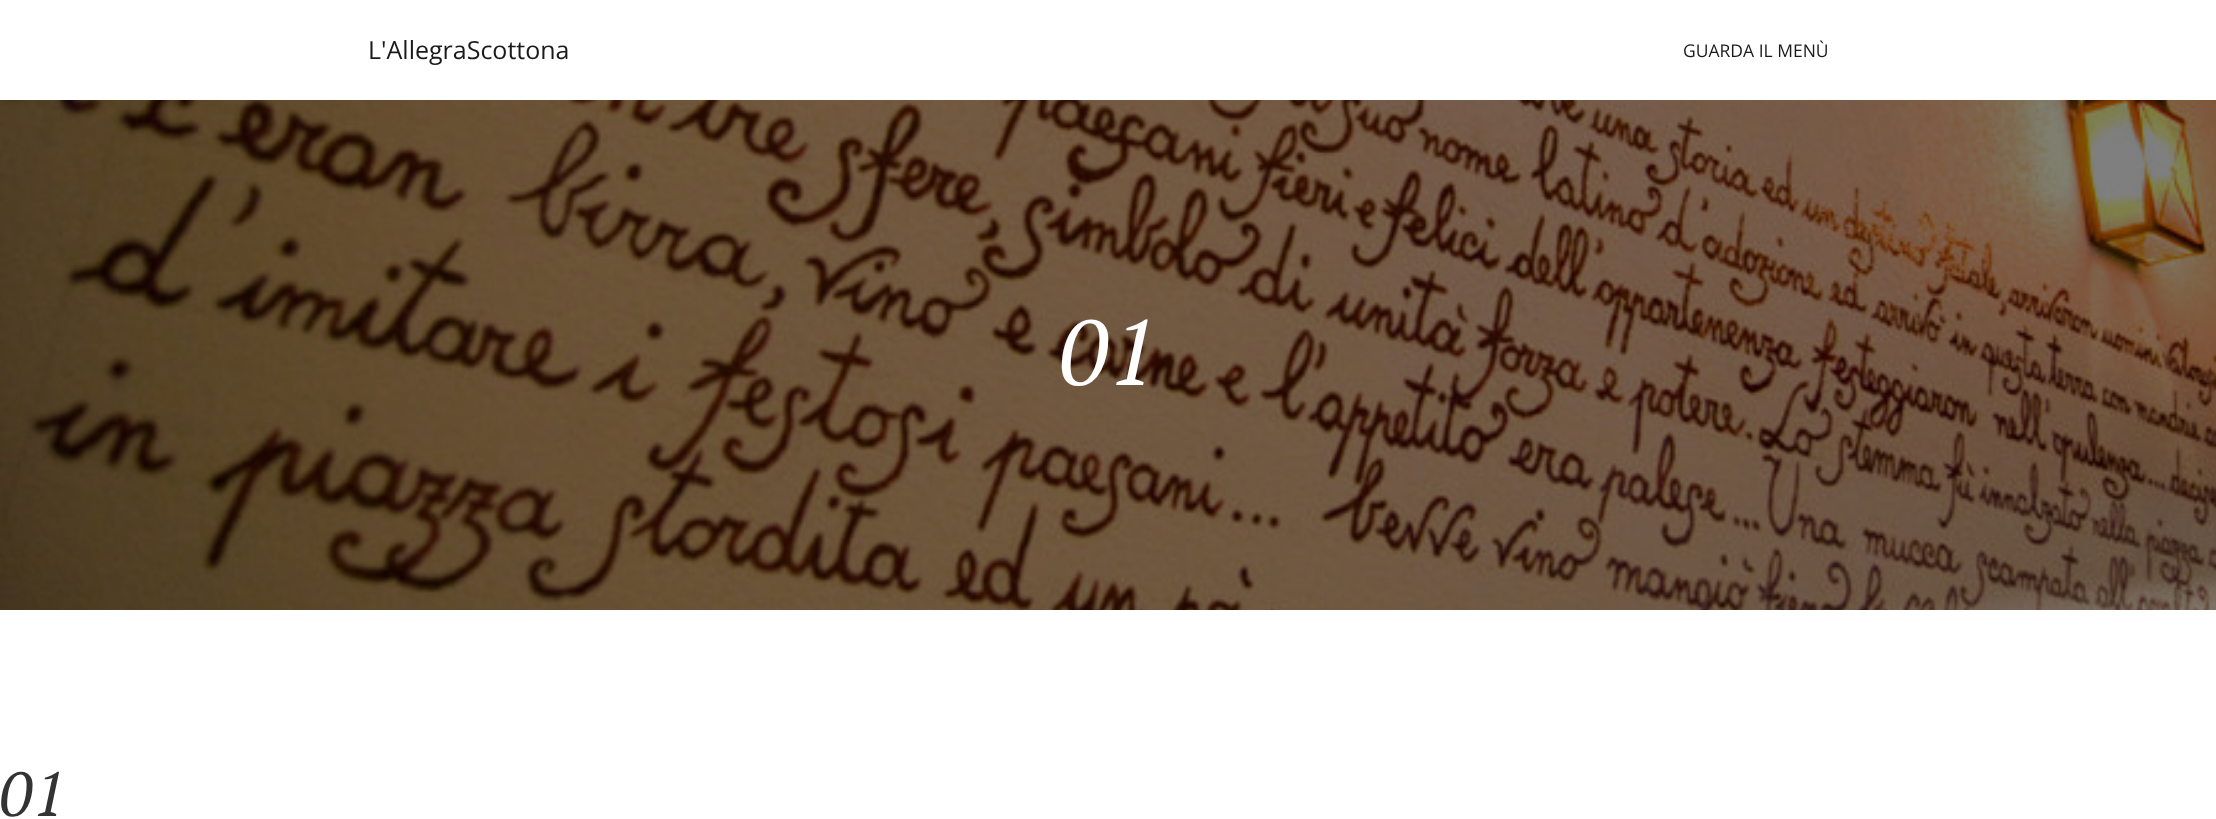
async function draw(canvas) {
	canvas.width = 2216;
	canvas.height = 819;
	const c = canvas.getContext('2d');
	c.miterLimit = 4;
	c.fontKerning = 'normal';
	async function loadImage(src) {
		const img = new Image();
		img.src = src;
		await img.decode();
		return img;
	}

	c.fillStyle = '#fff';
	c.fillRect(0, 0, 2216, 819);
	c.font = '25px Open Sans';
	c.fillStyle = '#1a1a1a';
	c.fillText('L\'AllegraScottona', 368, 59);
	c.font = '17.5px Open Sans';
	c.fillText('GUARDA IL MENÙ', 1683, 57);
	c.drawImage(await loadImage('img1.png'), 0, 100, 2216, 510);
	c.font = 'italic 92px PT Serif';
	c.fillStyle = '#fff';
	c.fillText('01', 1060, 385);
	c.font = 'italic 62px PT Serif';
	c.fillStyle = '#333';
	c.fillText('01', 0, 816);
}

draw(document.querySelector('canvas'));
